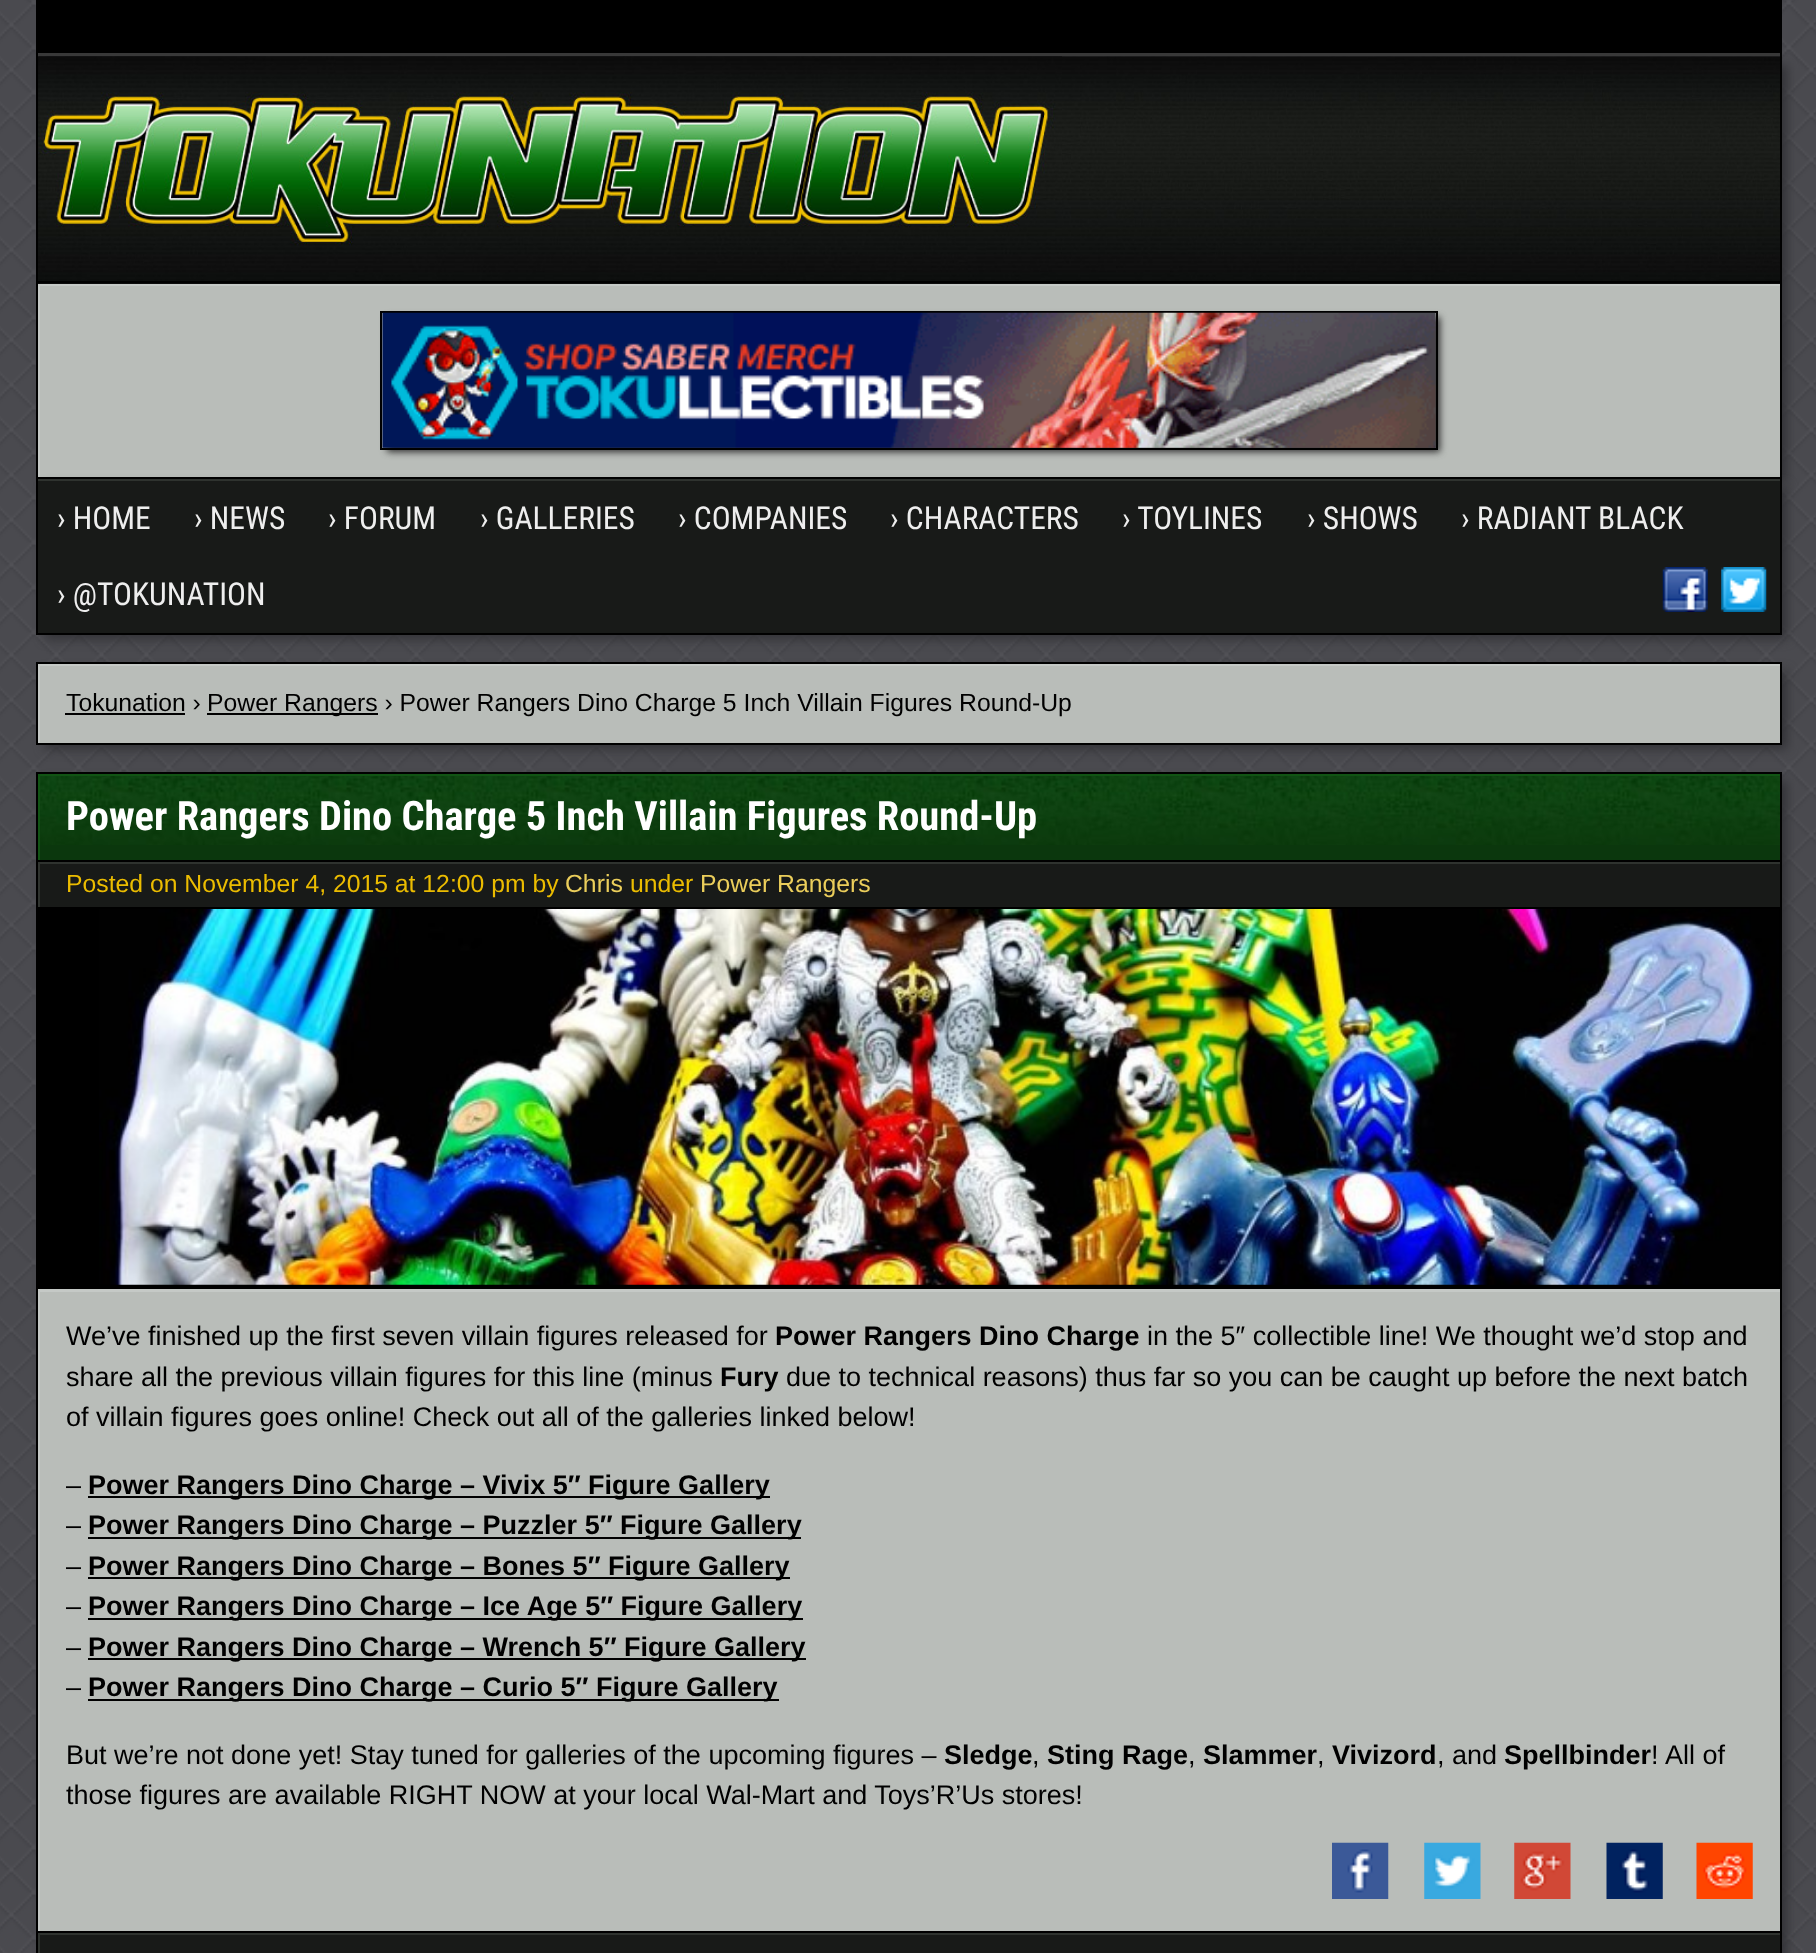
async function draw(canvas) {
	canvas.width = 1816;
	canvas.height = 1953;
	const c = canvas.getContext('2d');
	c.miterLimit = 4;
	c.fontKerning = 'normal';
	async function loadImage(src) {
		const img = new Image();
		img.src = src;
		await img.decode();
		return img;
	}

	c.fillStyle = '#fff';
	c.fillRect(0, 0, 1816, 1953);
	c.drawImage(await loadImage('img1.png'), 0, 0, 1816, 1953);
	for (const [x, y, w, h, color] of [
		[38, 0, 1742, 53, '#000'],
		[36, 53, 1746, 3, '#393939'],
		[1780, 0, 2, 56, '#000'],
		[36, 0, 2, 56, '#000'],
	]) {
		c.fillStyle = color;
		c.fillRect(x, y, w, h);
	}
	c.fillStyle = '#323236';
	c.filter = 'blur(5.5px)';
	c.beginPath();
	c.rect(45, 65, 1742, 417);
	c.fill();
	c.filter = 'none';
	c.drawImage(await loadImage('img2.png'), 38, 56, 1742, 228);
	c.fillStyle = '#000';
	c.fillRect(1780, 56, 2, 421);
	c.fillRect(36, 56, 2, 421);
	c.drawImage(await loadImage('img3.png'), 38, 56, 1024, 190);
	c.fillStyle = '#b9bdb9';
	c.fillRect(40, 286, 1740, 191);
	c.save();
	c.beginPath();
	c.rect(38, 284, 1742, 193);
	c.clip();
	c.fillStyle = '#c5c9c6';
	c.beginPath();
	c.moveTo(-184, 61);
	c.lineTo(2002, 61);
	c.lineTo(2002, 700);
	c.lineTo(-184, 700);
	c.closePath();
	c.moveTo(40, 286);
	c.lineTo(1782, 286);
	c.lineTo(1782, 479);
	c.lineTo(40, 479);
	c.closePath();
	c.fill('evenodd');
	c.restore();
	c.fillStyle = '#000';
	c.fillRect(38, 281, 1742, 2);
	c.fillStyle = '#333';
	c.filter = 'blur(3.5px)';
	c.beginPath();
	c.rect(387, 317, 1053, 135);
	c.fill();
	c.filter = 'none';
	c.strokeStyle = '#000';
	c.lineWidth = 2;
	c.strokeRect(381, 312, 1056, 137);
	c.drawImage(await loadImage('img4.png'), 382, 312, 1054, 136);
	c.fillStyle = '#323236';
	c.filter = 'blur(5.5px)';
	c.beginPath();
	c.rect(45, 486, 1742, 153);
	c.fill();
	c.filter = 'none';
	c.fillStyle = '#181a18';
	c.fillRect(38, 481, 1742, 152);
	c.fillStyle = '#2f332f';
	c.fillRect(38, 479, 1742, 2);
	c.strokeRect(37, 478, 1744, 156);
	c.font = '31.5px Roboto Condensed';
	c.fillStyle = '#eee';
	for (const [text, x, y] of [
		['› HOME', 57, 529],
		['› NEWS', 194, 529],
		['› FORUM', 328, 529],
		['› GALLERIES', 480, 529],
		['› COMPANIES', 678, 529],
		['› CHARACTERS', 890, 529],
		['› TOYLINES', 1122, 529],
		['› SHOWS', 1307, 529],
		['› RADIANT BLACK', 1461, 529],
		['› @TOKUNATION', 57, 605],
	]) {
		c.fillText(text, x, y);
	}
	c.drawImage(await loadImage('img5.png'), 1662, 567, 46, 45);
	c.drawImage(await loadImage('img6.png'), 1721, 567, 46, 45);
	c.fillStyle = '#323236';
	c.filter = 'blur(5.5px)';
	c.beginPath();
	c.rect(45, 671, 1742, 78);
	c.fill();
	c.filter = 'none';
	c.fillStyle = '#b9bdb9';
	c.fillRect(40, 666, 1740, 77);
	c.save();
	c.beginPath();
	c.rect(38, 664, 1742, 79);
	c.clip();
	c.fillStyle = '#c5c9c6';
	c.beginPath();
	c.moveTo(-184, 441);
	c.lineTo(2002, 441);
	c.lineTo(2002, 965);
	c.lineTo(-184, 965);
	c.closePath();
	c.moveTo(40, 666);
	c.lineTo(1782, 666);
	c.lineTo(1782, 745);
	c.lineTo(40, 745);
	c.closePath();
	c.fill('evenodd');
	c.restore();
	c.strokeRect(37, 663, 1744, 81);
	c.font = '24.75px Liberation Sans';
	c.fillStyle = '#000';
	c.fillText('Tokunation ›', 66, 711);
	c.fillRect(65, 713, 120, 2);
	c.fillRect(207, 713, 171, 2);
	c.fillText('Power Rangers › Power Rangers Dino Charge 5 Inch Villain Figures Round-Up', 207, 711);
	c.fillStyle = '#323236';
	c.filter = 'blur(5.5px)';
	c.beginPath();
	c.rect(45, 781, 1742, 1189);
	c.fill();
	c.filter = 'none';
	c.fillStyle = '#0b370d';
	c.fillRect(40, 845, 1740, 15);
	c.drawImage(await loadImage('img7.png'), 40, 776, 1740, 69);
	c.save();
	c.beginPath();
	c.rect(38, 774, 1742, 86);
	c.clip();
	c.fillStyle = '#115414';
	c.beginPath();
	c.moveTo(-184, 551);
	c.lineTo(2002, 551);
	c.lineTo(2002, 1082);
	c.lineTo(-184, 1082);
	c.closePath();
	c.moveTo(40, 776);
	c.lineTo(1782, 776);
	c.lineTo(1782, 862);
	c.lineTo(40, 862);
	c.closePath();
	c.fill('evenodd');
	c.restore();
	c.strokeRect(37, 773, 1744, 88);
	c.font = 'bold 40.5px Roboto Condensed';
	c.fillStyle = '#fff';
	c.fillText('Power Rangers Dino Charge 5 Inch Villain Figures Round-Up', 66, 830);
	c.fillStyle = '#181a18';
	c.fillRect(40, 864, 1740, 43);
	c.save();
	c.beginPath();
	c.rect(38, 862, 1742, 45);
	c.clip();
	c.fillStyle = '#2f332f';
	c.beginPath();
	c.moveTo(-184, 639);
	c.lineTo(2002, 639);
	c.lineTo(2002, 1130);
	c.lineTo(-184, 1130);
	c.closePath();
	c.moveTo(40, 864);
	c.lineTo(1782, 864);
	c.lineTo(1782, 909);
	c.lineTo(40, 909);
	c.closePath();
	c.fill('evenodd');
	c.restore();
	for (const [x, y, w, h, color] of [
		[1780, 862, 2, 47, '#000'],
		[36, 907, 1746, 382, '#000'],
		[36, 862, 2, 47, '#000'],
	]) {
		c.fillStyle = color;
		c.fillRect(x, y, w, h);
	}
	c.font = '24.75px Liberation Sans';
	c.fillStyle = '#ebbc00';
	c.fillText('Posted on November 4, 2015 at 12:00 pm by', 66, 892);
	c.fillStyle = '#ebce5b';
	c.fillText('Chris', 565, 892);
	c.fillStyle = '#ebbc00';
	c.fillText('under', 630, 892);
	c.fillStyle = '#ebce5b';
	c.fillText('Power Rangers', 700, 892);
	c.drawImage(await loadImage('img8.png'), 99, 909, 1680, 376);
	c.fillStyle = '#b9bdb9';
	c.fillRect(40, 1292, 1740, 639);
	c.save();
	c.beginPath();
	c.rect(38, 1289, 1742, 642);
	c.clip();
	c.fillStyle = '#c5c9c6';
	c.beginPath();
	c.moveTo(-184, 1066);
	c.lineTo(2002, 1066);
	c.lineTo(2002, 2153);
	c.lineTo(-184, 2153);
	c.closePath();
	c.moveTo(40, 1292);
	c.lineTo(1782, 1292);
	c.lineTo(1782, 1933);
	c.lineTo(40, 1933);
	c.closePath();
	c.fill('evenodd');
	c.restore();
	for (const [x, y, w, h, color] of [
		[1780, 1289, 2, 664, '#000'],
		[36, 1931, 1746, 2, '#000'],
		[36, 1289, 2, 664, '#000'],
	]) {
		c.fillStyle = color;
		c.fillRect(x, y, w, h);
	}
	c.font = '27px Liberation Sans';
	c.fillText('We’ve finished up the first seven villain figures released for', 66, 1345);
	c.font = 'bold 27px Liberation Sans';
	c.fillText('Power Rangers Dino Charge', 775, 1345);
	c.font = '27px Liberation Sans';
	c.fillText('in the 5″ collectible line! We thought we’d stop and', 1147, 1345);
	c.fillText('share all the previous villain figures for this line (minus', 66, 1386);
	c.font = 'bold 27px Liberation Sans';
	c.fillText('Fury', 720, 1386);
	c.font = '27px Liberation Sans';
	for (const [text, x, y] of [
		['due to technical reasons) thus far so you can be caught up before the next batch', 786, 1386],
		['of villain figures goes online! Check out all of the galleries linked below!', 66, 1426],
		['–', 66, 1494],
	]) {
		c.fillText(text, x, y);
	}
	c.fillRect(88, 1496, 682, 2);
	c.font = 'bold 27px Liberation Sans';
	c.fillText('Power Rangers Dino Charge – Vivix 5″ Figure Gallery', 88, 1494);
	c.font = '27px Liberation Sans';
	c.fillText('–', 66, 1534);
	c.fillRect(88, 1537, 713, 2);
	c.font = 'bold 27px Liberation Sans';
	c.fillText('Power Rangers Dino Charge – Puzzler 5″ Figure Gallery', 88, 1534);
	c.font = '27px Liberation Sans';
	c.fillText('–', 66, 1575);
	c.fillRect(88, 1577, 702, 2);
	c.font = 'bold 27px Liberation Sans';
	c.fillText('Power Rangers Dino Charge – Bones 5″ Figure Gallery', 88, 1575);
	c.font = '27px Liberation Sans';
	c.fillText('–', 66, 1615);
	c.fillRect(88, 1618, 715, 2);
	c.font = 'bold 27px Liberation Sans';
	c.fillText('Power Rangers Dino Charge – Ice Age 5″ Figure Gallery', 88, 1615);
	c.font = '27px Liberation Sans';
	c.fillText('–', 66, 1656);
	c.fillRect(88, 1658, 718, 2);
	c.font = 'bold 27px Liberation Sans';
	c.fillText('Power Rangers Dino Charge – Wrench 5″ Figure Gallery', 88, 1656);
	c.font = '27px Liberation Sans';
	c.fillText('–', 66, 1696);
	c.fillRect(88, 1699, 691, 2);
	c.font = 'bold 27px Liberation Sans';
	c.fillText('Power Rangers Dino Charge – Curio 5″ Figure Gallery', 88, 1696);
	c.font = '27px Liberation Sans';
	c.fillText('But we’re not done yet! Stay tuned for galleries of the upcoming figures –', 66, 1764);
	c.font = 'bold 27px Liberation Sans';
	c.fillText('Sledge', 944, 1764);
	c.font = '27px Liberation Sans';
	c.fillText(',', 1032, 1764);
	c.font = 'bold 27px Liberation Sans';
	c.fillText('Sting Rage', 1047, 1764);
	c.font = '27px Liberation Sans';
	c.fillText(',', 1188, 1764);
	c.font = 'bold 27px Liberation Sans';
	c.fillText('Slammer', 1203, 1764);
	c.font = '27px Liberation Sans';
	c.fillText(',', 1317, 1764);
	c.font = 'bold 27px Liberation Sans';
	c.fillText('Vivizord', 1332, 1764);
	c.font = '27px Liberation Sans';
	c.fillText(', and', 1437, 1764);
	c.font = 'bold 27px Liberation Sans';
	c.fillText('Spellbinder', 1504, 1764);
	c.font = '27px Liberation Sans';
	for (const [text, x, y] of [
		['!', 1651, 1764],
		['All of', 1665, 1764],
		['those figures are available RIGHT NOW at your local Wal-Mart and Toys’R’Us stores!', 66, 1804],
	]) {
		c.fillText(text, x, y);
	}
	c.drawImage(await loadImage('img9.png'), 1332, 1842, 57, 57);
	c.drawImage(await loadImage('img10.png'), 1424, 1842, 57, 57);
	c.drawImage(await loadImage('img11.png'), 1514, 1842, 57, 57);
	c.drawImage(await loadImage('img12.png'), 1606, 1842, 57, 57);
	c.drawImage(await loadImage('img13.png'), 1696, 1842, 57, 57);
	c.fillStyle = '#181a18';
	c.fillRect(40, 1935, 1740, 18);
	c.save();
	c.beginPath();
	c.rect(38, 1933, 1742, 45);
	c.clip();
	c.fillStyle = '#2f332f';
	c.beginPath();
	c.moveTo(-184, 1710);
	c.lineTo(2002, 1710);
	c.lineTo(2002, 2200);
	c.lineTo(-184, 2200);
	c.closePath();
	c.moveTo(40, 1935);
	c.lineTo(1782, 1935);
	c.lineTo(1782, 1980);
	c.lineTo(40, 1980);
	c.closePath();
	c.fill('evenodd');
	c.restore();
}

draw(document.querySelector('canvas'));
